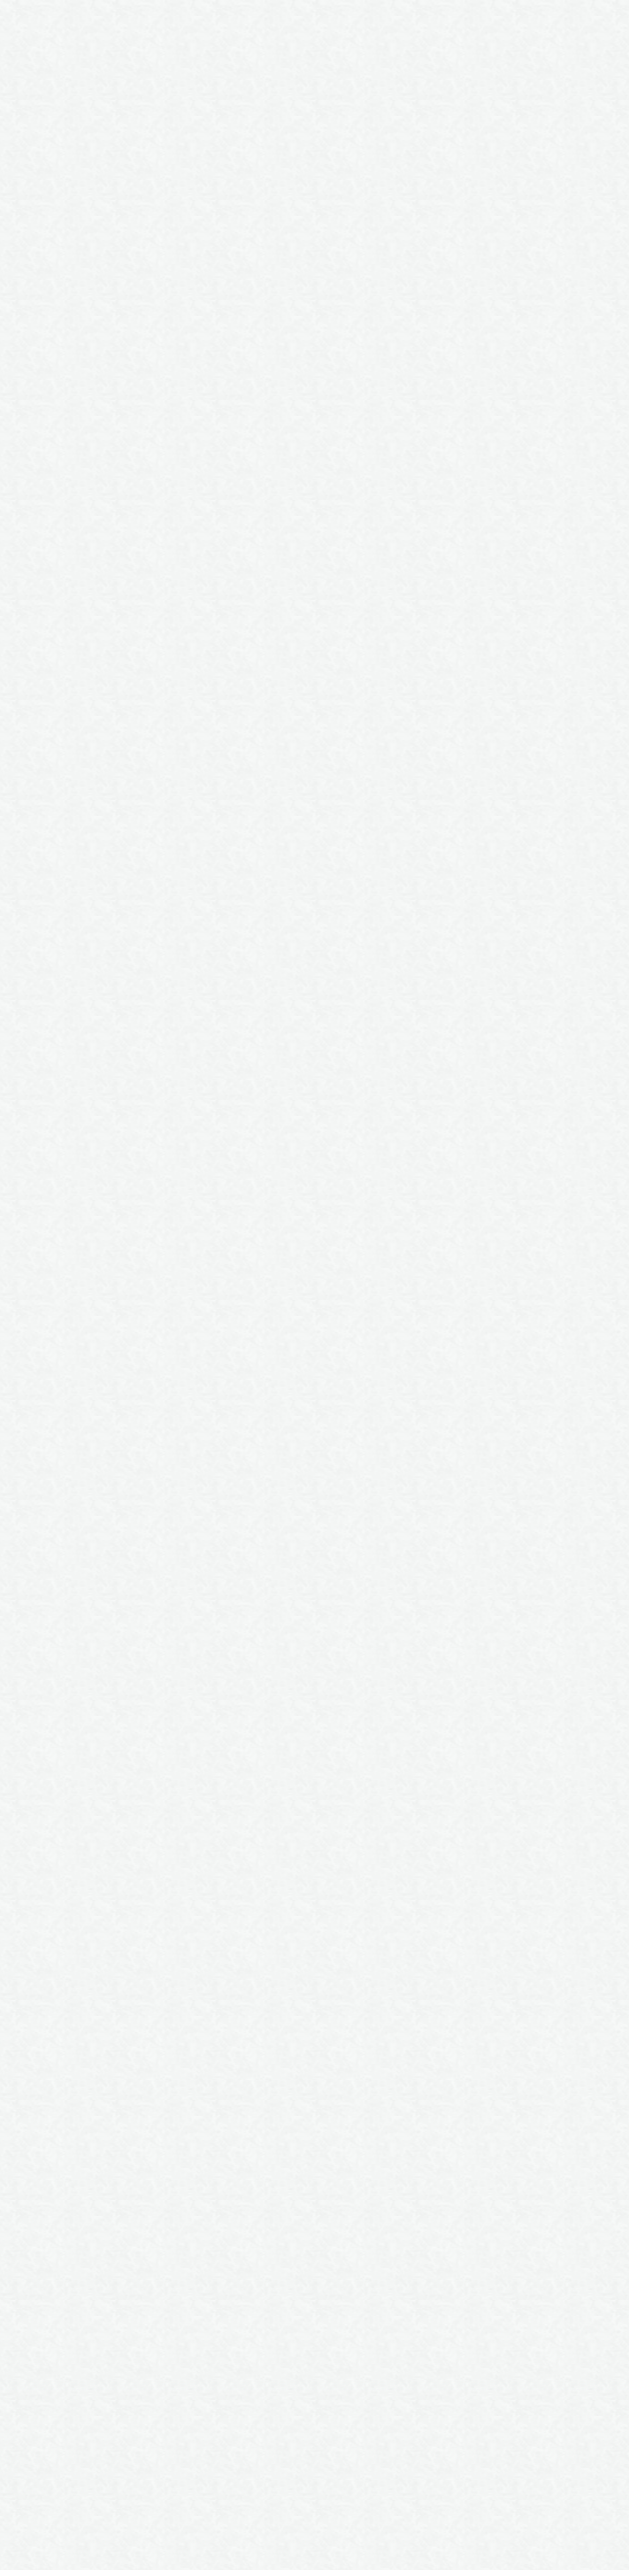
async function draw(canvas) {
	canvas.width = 629;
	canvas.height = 2570;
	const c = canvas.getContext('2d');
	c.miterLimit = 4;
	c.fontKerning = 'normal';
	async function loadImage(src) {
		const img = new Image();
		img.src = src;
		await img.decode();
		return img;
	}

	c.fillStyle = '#fff';
	c.fillRect(0, 0, 629, 2570);
	c.drawImage(await loadImage('img1.png'), 0, 0, 629, 2570);
}

draw(document.querySelector('canvas'));
